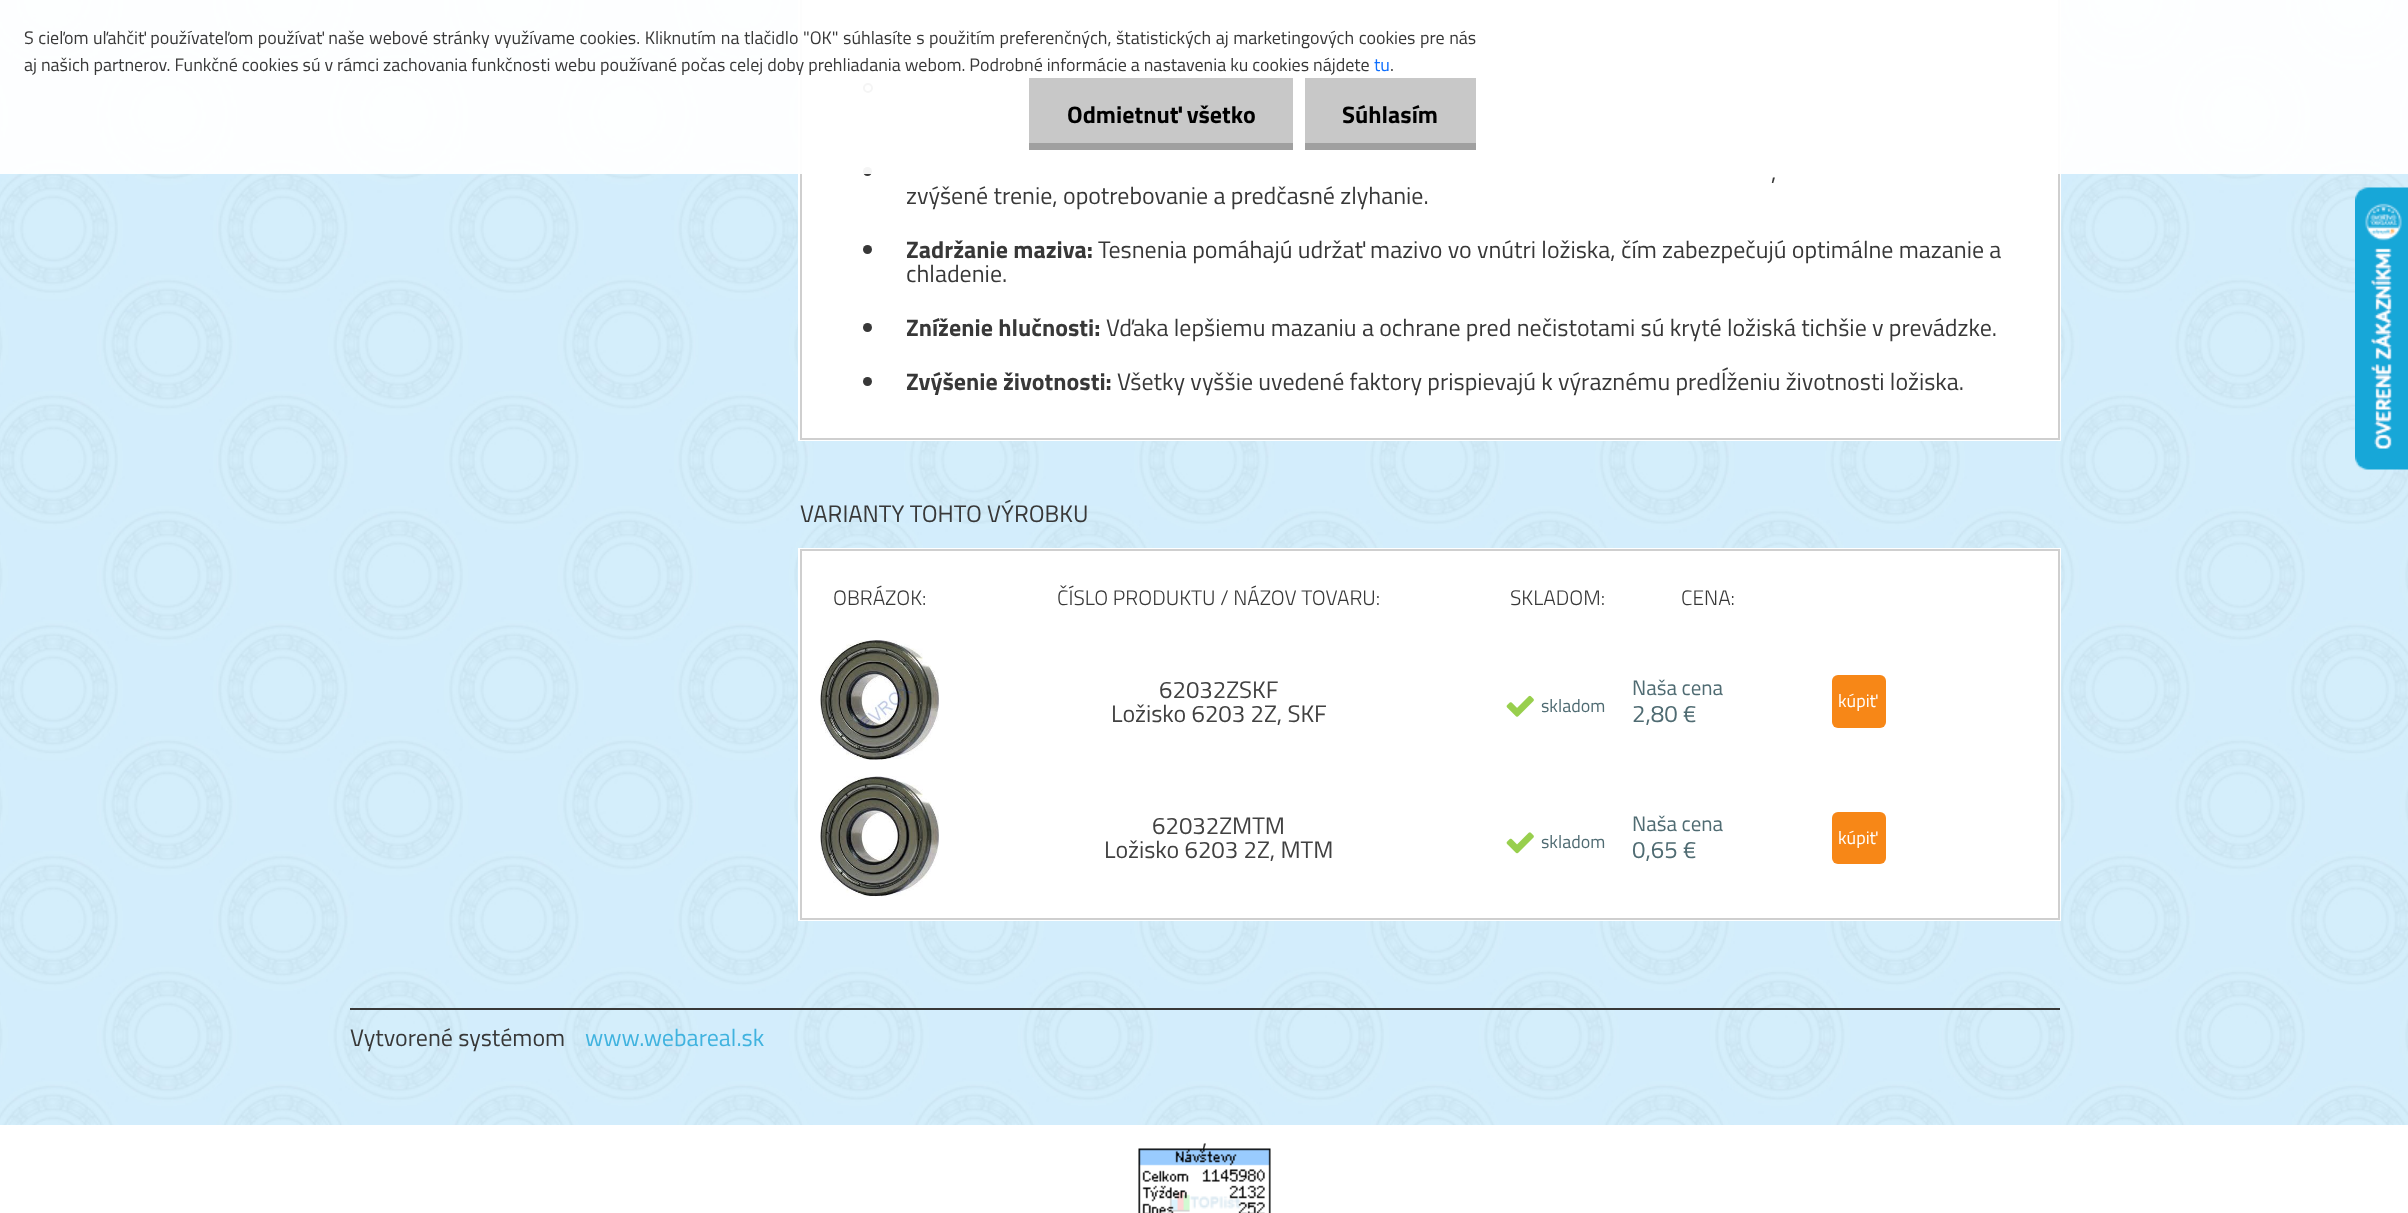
async function draw(canvas) {
	canvas.width = 2408;
	canvas.height = 1213;
	const c = canvas.getContext('2d');
	c.miterLimit = 4;
	c.fontKerning = 'normal';
	async function loadImage(src) {
		const img = new Image();
		img.src = src;
		await img.decode();
		return img;
	}

	c.fillStyle = '#fff';
	c.fillRect(0, 0, 2408, 1213);
	c.drawImage(await loadImage('img1.png'), 0, 0, 2408, 1125);
	c.strokeStyle = '#fff';
	c.lineWidth = 2;
	c.strokeRect(799, -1, 1261, 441);
	for (const [x, y, w, h, color] of [
		[802, 0, 1256, 438, '#fff'],
		[2058, 0, 2, 440, '#cfcfcf'],
		[800, 438, 1260, 2, '#cfcfcf'],
		[800, 0, 2, 440, '#cfcfcf'],
	]) {
		c.fillStyle = color;
		c.fillRect(x, y, w, h);
	}
	c.beginPath();
	c.arc(868, 88, 4, 0, 2 * Math.PI);
	c.strokeStyle = '#383838';
	c.stroke();
	c.fillStyle = '#383838';
	c.beginPath();
	c.arc(867.5, 171.5, 4.5, 0, 2 * Math.PI);
	c.fill();
	c.fillStyle = '#fffffff2';
	c.fillRect(0, 0, 2408, 174);
	c.wordSpacing = '0.6px';
	c.font = '18px Titillium Web';
	c.fillStyle = '#383838';
	c.fillText('S cieľom uľahčiť používateľom používať naše webové stránky využívame cookies. Kliknutím na tlačidlo "OK" súhlasíte s použitím preferenčných, štatistických aj marketingových cookies pre nás', 24, 44);
	c.wordSpacing = '0px';
	c.fillText('aj našich partnerov. Funkčné cookies sú v rámci zachovania funkčnosti webu používané počas celej doby prehliadania webom. Podrobné informácie a nastavenia ku cookies nájdete', 24, 71);
	c.fillStyle = '#0d6efd';
	c.fillText('tu', 1374, 71);
	c.fillStyle = '#383838';
	c.fillText('.', 1390, 71);
	c.fillStyle = '#c8c8c8';
	c.fillRect(1029, 78, 264, 65);
	c.fillStyle = '#a0a0a0';
	c.fillRect(1029, 143, 264, 7);
	c.font = 'bold 24px Titillium Web';
	c.fillStyle = '#000';
	c.fillText('Odmietnuť všetko', 1067, 123);
	c.fillStyle = '#c8c8c8';
	c.fillRect(1305, 78, 171, 65);
	c.fillStyle = '#a0a0a0';
	c.fillRect(1305, 143, 171, 7);
	c.fillStyle = '#000';
	c.fillText('Súhlasím', 1342, 123);
	c.font = '24px Titillium Web';
	c.fillStyle = '#383838';
	c.fillText(',', 1771, 180);
	c.fillText('zvýšené trenie, opotrebovanie a predčasné zlyhanie.', 906, 204);
	c.beginPath();
	c.arc(867.5, 249.5, 4.5, 0, 2 * Math.PI);
	c.fill();
	c.font = 'bold 24px Titillium Web';
	c.fillText('Zadržanie maziva:', 906, 258);
	c.font = '24px Titillium Web';
	c.fillText('Tesnenia pomáhajú udržať mazivo vo vnútri ložiska, čím zabezpečujú optimálne mazanie a', 1098, 258);
	c.fillText('chladenie.', 906, 282);
	c.beginPath();
	c.arc(867.5, 327.5, 4.5, 0, 2 * Math.PI);
	c.fill();
	c.font = 'bold 24px Titillium Web';
	c.fillText('Zníženie hlučnosti:', 906, 336);
	c.font = '24px Titillium Web';
	c.fillText('Vďaka lepšiemu mazaniu a ochrane pred nečistotami sú kryté ložiská tichšie v prevádzke.', 1106, 336);
	c.beginPath();
	c.arc(867.5, 381.5, 4.5, 0, 2 * Math.PI);
	c.fill();
	c.font = 'bold 24px Titillium Web';
	c.fillText('Zvýšenie životnosti:', 906, 390);
	c.font = '24px Titillium Web';
	c.fillText('Všetky vyššie uvedené faktory prispievajú k výraznému predĺženiu životnosti ložiska.', 1117, 390);
	c.fillText('VARIANTY TOHTO VÝROBKU', 800, 522);
	c.strokeStyle = '#fff';
	c.strokeRect(799, 549, 1261, 371);
	c.fillStyle = '#fff';
	c.beginPath();
	c.rect(801, 550, 1258, 369);
	c.fill();
	c.strokeStyle = '#cfcfcf';
	c.stroke();
	c.font = '300 21px Titillium Web';
	c.fillStyle = '#383838';
	for (const [text, x, y] of [
		['OBRÁZOK:', 833, 605],
		['ČÍSLO PRODUKTU / NÁZOV TOVARU:', 1057, 605],
		['SKLADOM:', 1510, 605],
		['CENA:', 1681, 605],
	]) {
		c.fillText(text, x, y);
	}
	c.drawImage(await loadImage('img2.png'), 820, 640, 119, 120);
	c.font = '24px Titillium Web';
	c.fillStyle = '#414141';
	c.fillText('62032ZSKF', 1159, 698);
	c.fillText('Ložisko 6203 2Z, SKF', 1111, 722);
	c.drawImage(await loadImage('img3.png'), 1506, 695, 28, 22);
	c.font = '18px Titillium Web';
	c.fillStyle = '#4f6b72';
	c.fillText('skladom', 1541, 712);
	c.font = '21px Titillium Web';
	c.fillText('Naša cena', 1632, 695);
	c.font = '24px Titillium Web';
	c.fillText('2,80 €', 1632, 722);
	c.fillStyle = '#f78717';
	c.beginPath();
	c.roundRect(1832, 675, 54, 53, 6);
	c.fill();
	c.font = '18px Titillium Web';
	c.fillStyle = '#fff';
	c.fillText('kúpiť', 1838, 707);
	c.drawImage(await loadImage('img4.png'), 820, 776, 119, 121);
	c.font = '24px Titillium Web';
	c.fillStyle = '#414141';
	c.fillText('62032ZMTM', 1152, 834);
	c.fillText('Ložisko 6203 2Z, MTM', 1104, 858);
	c.drawImage(await loadImage('img5.png'), 1506, 832, 28, 22);
	c.font = '18px Titillium Web';
	c.fillStyle = '#4f6b72';
	c.fillText('skladom', 1541, 848);
	c.font = '21px Titillium Web';
	c.fillText('Naša cena', 1632, 831);
	c.font = '24px Titillium Web';
	c.fillText('0,65 €', 1632, 858);
	c.fillStyle = '#f78717';
	c.beginPath();
	c.roundRect(1832, 812, 54, 52, 6);
	c.fill();
	c.font = '18px Titillium Web';
	c.fillStyle = '#fff';
	c.fillText('kúpiť', 1838, 844);
	c.fillStyle = '#383838';
	c.fillRect(350, 1008, 1710, 2);
	c.font = '24px Titillium Web';
	c.fillText('Vytvorené systémom', 350, 1046);
	c.fillStyle = '#40b3df';
	c.fillText('www.webareal.sk', 585, 1046);
	c.fillStyle = '#383838';
	c.fillText(',', 1202, 1146);
	c.drawImage(await loadImage('img6.png'), 1138, 1148, 133, 65);
	c.drawImage(await loadImage('img7.png'), 2355, 187, 53, 283);
}

draw(document.querySelector('canvas'));
